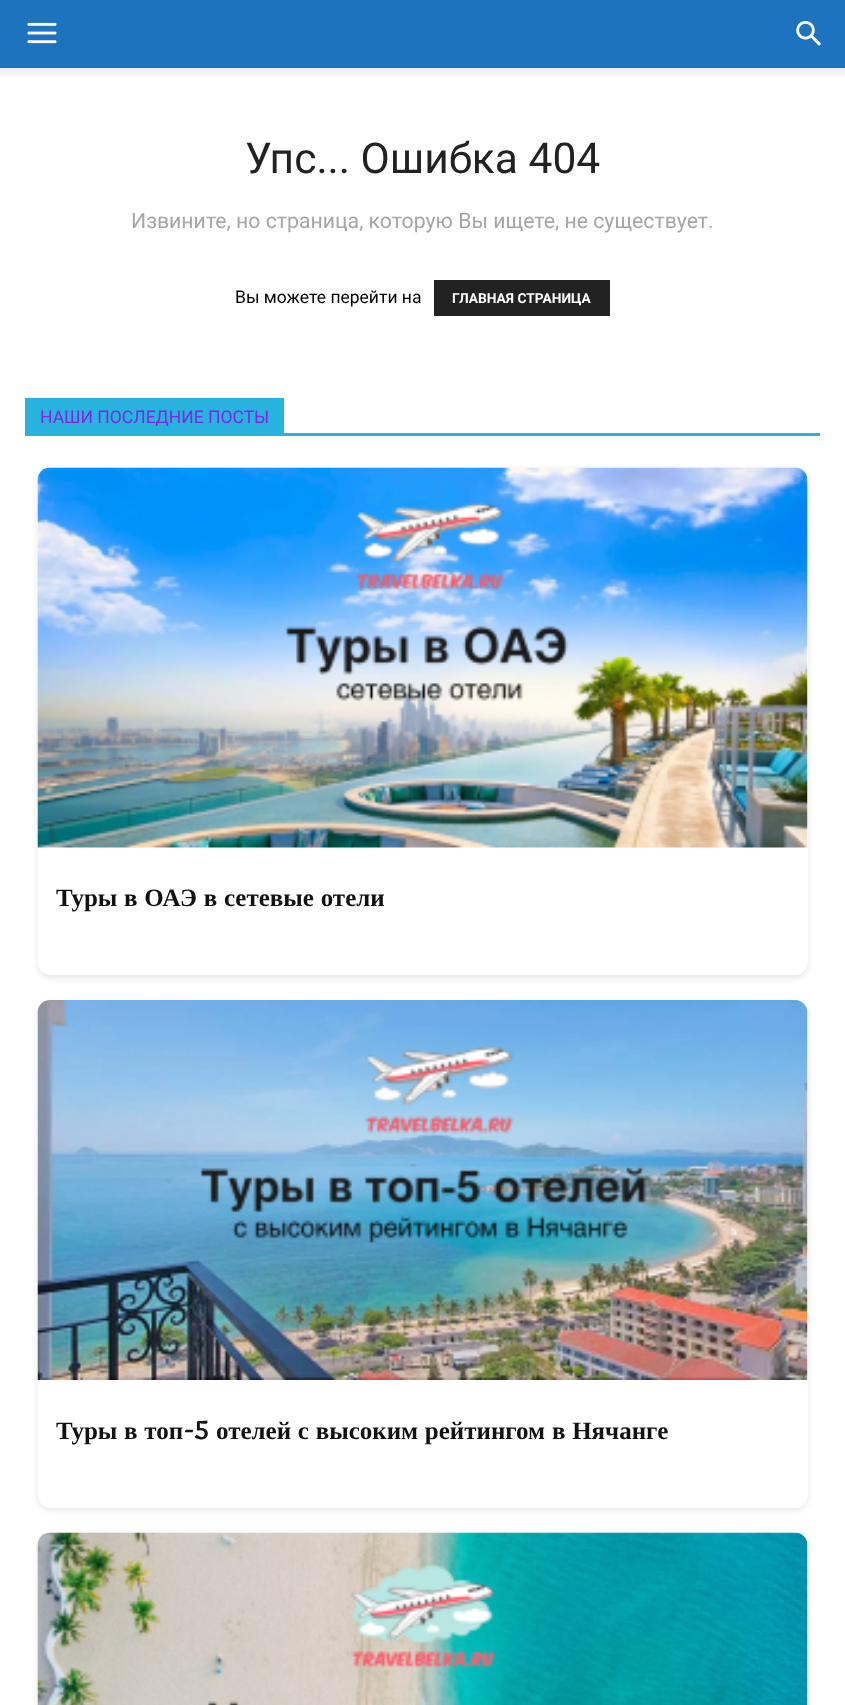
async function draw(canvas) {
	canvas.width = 845;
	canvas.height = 1705;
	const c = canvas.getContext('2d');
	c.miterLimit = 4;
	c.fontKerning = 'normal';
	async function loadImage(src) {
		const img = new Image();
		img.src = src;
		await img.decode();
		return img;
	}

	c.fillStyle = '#fff';
	c.fillRect(0, 0, 845, 1705);
	c.fillStyle = '#1e73be';
	c.fillRect(0, 0, 845, 68);
	c.drawImage(await loadImage('img1.png'), 27, 22, 30, 22);
	c.drawImage(await loadImage('img2.png'), 796, 21, 25, 25);
	c.drawImage(await loadImage('img3.png'), 0, 68, 845, 10);
	c.font = '42.5px Roboto';
	c.fillStyle = '#222';
	c.fillText('Упс... Ошибка 404', 245, 173);
	c.font = '21.25px Roboto';
	c.fillStyle = '#a6a6a6';
	c.fillText('Извините, но страница, которую Вы ищете, не существует.', 131, 228);
	c.font = '17.5px Roboto';
	c.fillStyle = '#000';
	c.fillText('Вы можете перейти на', 235, 303);
	c.fillStyle = '#222';
	c.fillRect(434, 280, 176, 36);
	c.font = 'bold 13.75px Roboto';
	c.fillStyle = '#fff';
	c.fillText('ГЛАВНАЯ СТРАНИЦА', 452, 303);
	c.fillStyle = '#27b3dd';
	c.fillRect(25, 433, 795, 3);
	c.fillRect(25, 398, 259, 35);
	c.font = '17.5px Roboto';
	c.fillStyle = '#8224e3';
	c.fillText('НАШИ ПОСЛЕДНИЕ ПОСТЫ', 40, 423);
	c.fillStyle = '#0000001a';
	c.filter = 'blur(3px)';
	c.beginPath();
	c.roundRect(38, 470, 770, 508, 13);
	c.fill();
	c.filter = 'none';
	c.fillStyle = '#fff';
	c.beginPath();
	c.roundRect(38, 468, 770, 507, 13);
	c.fill();
	c.drawImage(await loadImage('img4.png'), 37, 467, 771, 381);
	c.wordSpacing = '0.5px';
	c.font = 'bold 25px Liberation Serif';
	c.fillStyle = '#111';
	c.fillText('Туры в ОАЭ в сетевые отели', 56, 906);
	c.fillStyle = '#0000001a';
	c.filter = 'blur(3px)';
	c.beginPath();
	c.roundRect(38, 1003, 770, 507, 13);
	c.fill();
	c.filter = 'none';
	c.fillStyle = '#fff';
	c.beginPath();
	c.roundRect(38, 1000, 770, 508, 13);
	c.fill();
	c.drawImage(await loadImage('img5.png'), 37, 1000, 771, 380);
	c.fillStyle = '#111';
	c.fillText('Туры в топ', 56, 1439);
	c.wordSpacing = '0px';
	c.font = 'bold 25px Artifika';
	c.fillText('-5', 183, 1439);
	c.wordSpacing = '0.5px';
	c.font = 'bold 25px Liberation Serif';
	c.fillText('отелей с высоким рейтингом в Нячанге', 216, 1439);
	c.fillStyle = '#0000001a';
	c.filter = 'blur(3px)';
	c.beginPath();
	c.roundRect(38, 1535, 770, 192, 13);
	c.fill();
	c.filter = 'none';
	c.fillStyle = '#fff';
	c.beginPath();
	c.roundRect(38, 1533, 770, 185, 13);
	c.fill();
	c.drawImage(await loadImage('img6.png'), 37, 1532, 771, 173);
}

draw(document.querySelector('canvas'));
